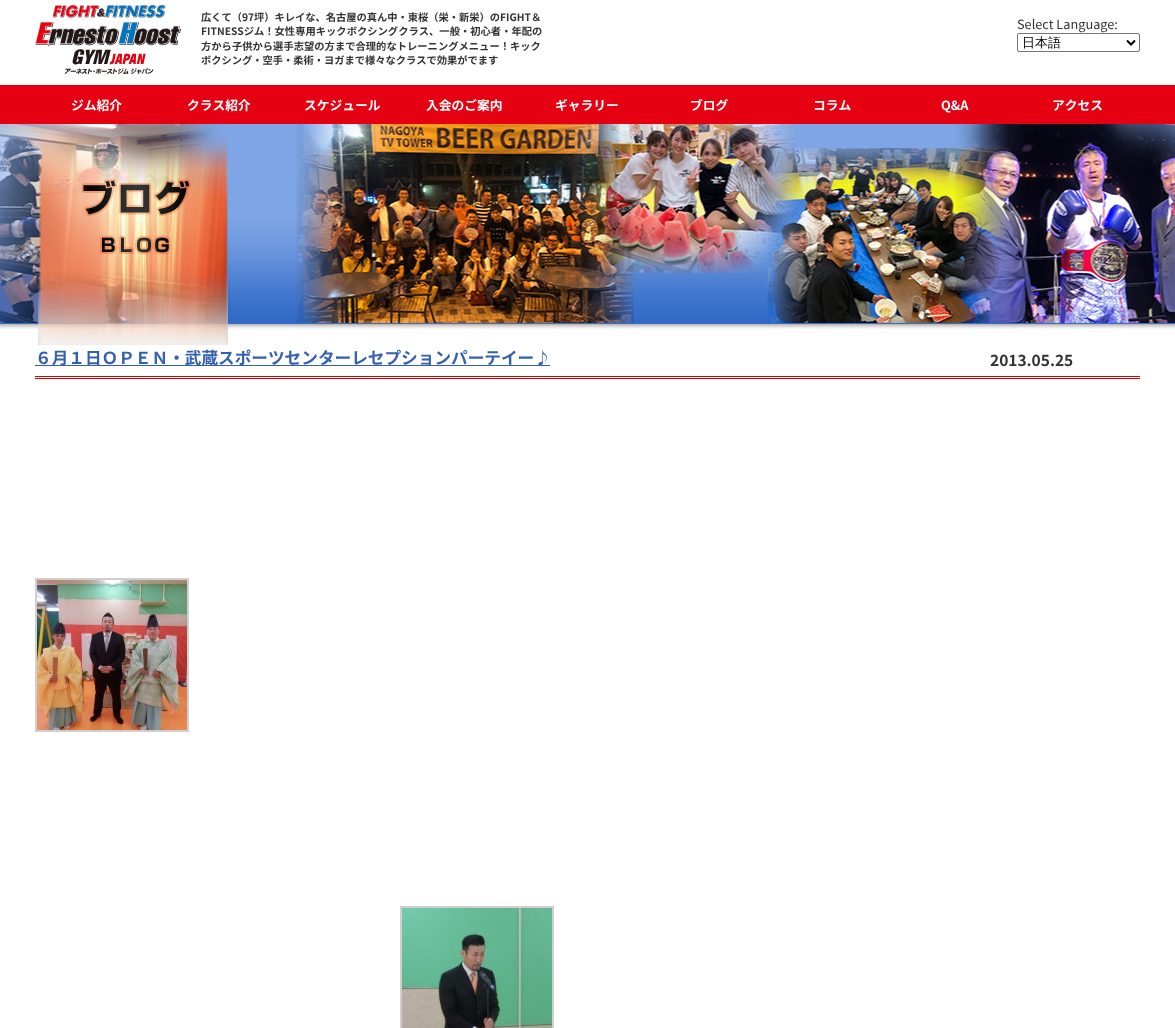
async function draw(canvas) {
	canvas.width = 1175;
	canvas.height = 1028;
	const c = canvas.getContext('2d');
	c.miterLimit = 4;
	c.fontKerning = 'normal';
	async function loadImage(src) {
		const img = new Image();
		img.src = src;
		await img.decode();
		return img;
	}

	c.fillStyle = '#fff';
	c.fillRect(0, 0, 1175, 1028);
	c.drawImage(await loadImage('img1.png'), 35, 5, 146, 69);
	c.font = 'bold 10.25px Noto Sans JP';
	c.fillStyle = '#333';
	c.fillText('広くて（97坪）キレイな、名古屋の真ん中・東桜（栄・新栄）のFIGHT＆', 201, 21);
	c.letterSpacing = '0.05px';
	c.fillText('FITNESSジム！女性専用キックボクシングクラス、一般・初心者・年配の', 201, 35);
	c.fillText('方から子供から選手志望の方まで合理的なトレーニングメニュー！キック', 201, 50);
	c.letterSpacing = '0px';
	c.fillText('ボクシング・空手・柔術・ヨガまで様々なクラスで効果がでます', 201, 64);
	c.font = '12.75px Noto Sans JP';
	c.fillText('Select Language:', 1017, 29);
	c.beginPath();
	c.roundRect(1017.5, 33.5, 122, 18, 1.5);
	c.strokeStyle = '#767676';
	c.stroke();
	c.beginPath();
	c.moveTo(1127, 40.5);
	c.lineTo(1131, 44.5);
	c.lineTo(1135, 40.5);
	c.strokeStyle = '#000';
	c.lineWidth = 2;
	c.stroke();
	c.font = '500 13px WenQuanYi Zen Hei';
	c.fillStyle = '#000';
	c.fillText('日本語', 1022, 47);
	c.fillStyle = '#e50012';
	c.fillRect(0, 85, 1175, 39);
	c.font = 'bold 12.75px Noto Sans JP';
	c.fillStyle = '#fff';
	for (const [text, x, y] of [
		['ジム紹介', 71, 110],
		['クラス紹介', 187, 110],
		['スケジュール', 304, 110],
		['入会のご案内', 426, 110],
		['ギャラリー', 555, 110],
		['ブログ', 690, 110],
		['コラム', 813, 110],
		['Q&A', 941, 110],
		['アクセス', 1052, 110],
	]) {
		c.fillText(text, x, y);
	}
	c.drawImage(await loadImage('img2.png'), 0, 124, 1175, 205);
	c.drawImage(await loadImage('img3.png'), 0, 124, 1175, 199);
	c.drawImage(await loadImage('img4.png'), 38, 130, 190, 215);
	for (const [x, y, w, h, color] of [
		[35, 376, 1105, 1, '#d00'],
		[35, 378, 1105, 1, '#d00'],
		[35, 365, 515, 1, '#3461ad'],
	]) {
		c.fillStyle = color;
		c.fillRect(x, y, w, h);
	}
	c.font = 'bold 16.65px Noto Sans JP';
	c.fillText('６月１日ＯＰＥＮ・武蔵スポーツセンターレセプションパーテイー♪', 35, 364);
	c.font = 'bold 15.5px Noto Sans JP';
	c.fillStyle = '#333';
	c.fillText('2013.05.25', 990, 366);
	c.strokeStyle = '#cfcfcf';
	c.strokeRect(36, 579, 152, 152);
	c.drawImage(await loadImage('img5.png'), 37, 580, 150, 150);
	c.strokeRect(401, 907, 152, 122);
	c.drawImage(await loadImage('img6.png'), 402, 908, 150, 120);
}

draw(document.querySelector('canvas'));
